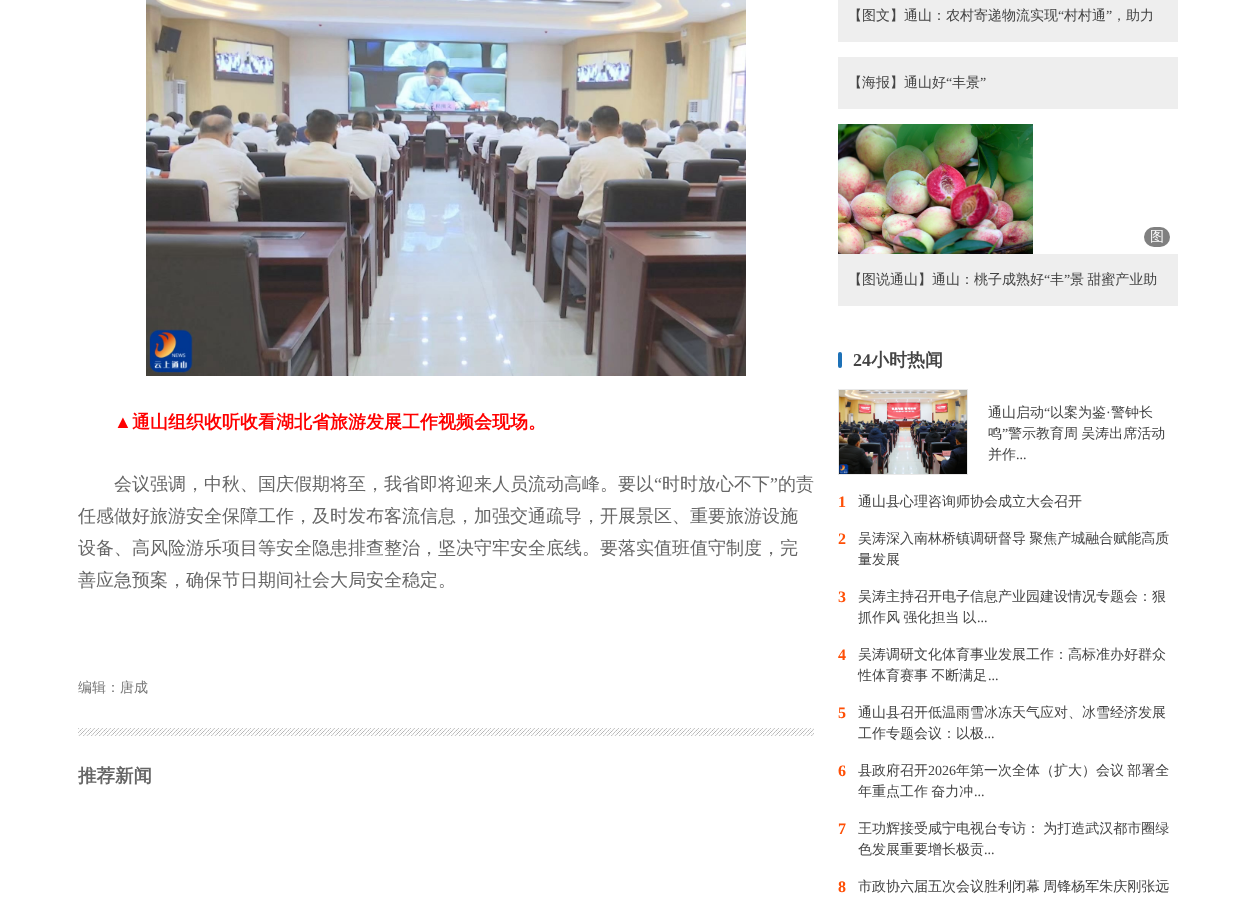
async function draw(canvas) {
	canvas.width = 1256;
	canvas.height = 903;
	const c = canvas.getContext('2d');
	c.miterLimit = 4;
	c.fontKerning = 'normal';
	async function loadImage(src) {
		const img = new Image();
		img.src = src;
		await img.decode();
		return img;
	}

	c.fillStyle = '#fff';
	c.fillRect(0, 0, 1256, 903);
	c.drawImage(await loadImage('img1.png'), 146, 0, 600, 376);
	c.font = 'bold 18px Liberation Serif';
	c.fillStyle = '#f00';
	c.fillText('▲', 114, 428);
	c.font = 'bold 18px WenQuanYi Zen Hei';
	c.fillText('通山组织收听收看湖北省旅游发展工作视频会现场。', 132, 428);
	c.font = '500 18px WenQuanYi Zen Hei';
	c.fillStyle = '#666';
	c.fillText('会议强调，中秋、国庆假期将至，我省即将迎来人员流动高峰。要以', 114, 490);
	c.font = '18px Liberation Serif';
	c.fillText('“', 654, 490);
	c.font = '500 18px WenQuanYi Zen Hei';
	c.fillText('时时放心不下', 662, 490);
	c.font = '18px Liberation Serif';
	c.fillText('”', 770, 490);
	c.font = '500 18px WenQuanYi Zen Hei';
	for (const [text, x, y] of [
		['的责', 778, 490],
		['任感做好旅游安全保障工作，及时发布客流信息，加强交通疏导，开展景区、重要旅游设施', 78, 522],
		['设备、高风险游乐项目等安全隐患排查整治，坚决守牢安全底线。要落实值班值守制度，完', 78, 554],
		['善应急预案，确保节日期间社会大局安全稳定。', 78, 586],
	]) {
		c.fillText(text, x, y);
	}
	c.font = '500 14px WenQuanYi Zen Hei';
	c.fillStyle = '#777';
	c.fillText('编辑：唐成', 78, 692);
	c.drawImage(await loadImage('img2.png'), 78, 728, 736, 8);
	c.font = 'bold 18.5px WenQuanYi Zen Hei';
	c.fillStyle = '#666';
	c.fillText('推荐新闻', 78, 782);
	c.fillStyle = '#eee';
	c.fillRect(838, 0, 340, 42);
	c.font = '500 14px WenQuanYi Zen Hei';
	c.fillStyle = '#444';
	c.fillText('【图文】通山：农村寄递物流实现', 848, 20);
	c.font = '14px Liberation Serif';
	c.fillText('“', 1058, 20);
	c.font = '500 14px WenQuanYi Zen Hei';
	c.fillText('村村通', 1064, 20);
	c.font = '14px Liberation Serif';
	c.fillText('”', 1106, 20);
	c.font = '500 14px WenQuanYi Zen Hei';
	c.fillText('，助力', 1112, 20);
	c.fillStyle = '#eee';
	c.fillRect(838, 57, 340, 52);
	c.fillStyle = '#444';
	c.fillText('【海报】通山好', 848, 87);
	c.font = '14px Liberation Serif';
	c.fillText('“', 946, 87);
	c.font = '500 14px WenQuanYi Zen Hei';
	c.fillText('丰景', 952, 87);
	c.font = '14px Liberation Serif';
	c.fillText('”', 980, 87);
	c.drawImage(await loadImage('img3.png'), 838, 124, 195, 130);
	c.fillStyle = '#808080';
	c.beginPath();
	c.roundRect(1144, 227, 26, 20, 10);
	c.fill();
	c.font = '500 14px WenQuanYi Zen Hei';
	c.fillStyle = '#fafafa';
	c.fillText('图', 1150, 241);
	c.fillStyle = '#eee';
	c.fillRect(838, 254, 340, 52);
	c.fillStyle = '#444';
	c.fillText('【图说通山】通山：桃子成熟好', 848, 284);
	c.font = '14px Liberation Serif';
	c.fillText('“', 1044, 284);
	c.font = '500 14px WenQuanYi Zen Hei';
	c.fillText('丰', 1050, 284);
	c.font = '14px Liberation Serif';
	c.fillText('”', 1064, 284);
	c.wordSpacing = '-1px';
	c.font = '500 14px WenQuanYi Zen Hei';
	c.fillText('景 甜蜜产业助', 1070, 284);
	c.fillStyle = '#1d71b7';
	c.beginPath();
	c.roundRect(838, 352, 4, 16, 2);
	c.fill();
	c.wordSpacing = '0px';
	c.font = 'bold 18px Liberation Serif';
	c.fillStyle = '#444';
	c.fillText('24', 853, 366);
	c.font = 'bold 18px WenQuanYi Zen Hei';
	c.fillText('小时热闻', 871, 366);
	c.fillStyle = '#e8e8e8';
	c.fillRect(838, 389, 130, 86);
	c.drawImage(await loadImage('img4.png'), 839, 390, 128, 84);
	c.font = '500 14px WenQuanYi Zen Hei';
	c.fillStyle = '#444';
	c.fillText('通山启动', 988, 417);
	c.font = '14px Liberation Serif';
	c.fillText('“', 1044, 417);
	c.font = '500 14px WenQuanYi Zen Hei';
	c.fillText('以案为鉴', 1050, 417);
	c.fillText('警钟长', 1111, 417);
	c.font = '14px Liberation Serif';
	c.fillText('·', 1106, 417);
	c.font = '500 14px WenQuanYi Zen Hei';
	c.fillText('鸣', 988, 438);
	c.font = '14px Liberation Serif';
	c.fillText('”', 1002, 438);
	c.wordSpacing = '-1px';
	c.font = '500 14px WenQuanYi Zen Hei';
	c.fillText('警示教育周 吴涛出席活动', 1008, 438);
	c.wordSpacing = '0px';
	c.fillText('并作', 988, 459);
	c.font = '14px Liberation Serif';
	c.fillText('...', 1016, 459);
	c.font = 'bold 16px Liberation Serif';
	c.fillStyle = '#ff4f06';
	c.fillText('1', 838, 507);
	c.font = '500 14px WenQuanYi Zen Hei';
	c.fillStyle = '#444';
	c.fillText('通山县心理咨询师协会成立大会召开', 858, 506);
	c.font = 'bold 16px Liberation Serif';
	c.fillStyle = '#ff4f06';
	c.fillText('2', 838, 544);
	c.wordSpacing = '-1px';
	c.font = '500 14px WenQuanYi Zen Hei';
	c.fillStyle = '#444';
	c.fillText('吴涛深入南林桥镇调研督导 聚焦产城融合赋能高质', 858, 543);
	c.wordSpacing = '0px';
	c.fillText('量发展', 858, 564);
	c.font = 'bold 16px Liberation Serif';
	c.fillStyle = '#ff4f06';
	c.fillText('3', 838, 602);
	c.font = '500 14px WenQuanYi Zen Hei';
	c.fillStyle = '#444';
	c.fillText('吴涛主持召开电子信息产业园建设情况专题会：狠', 858, 601);
	c.wordSpacing = '-1px';
	c.fillText('抓作风 强化担当 以', 858, 622);
	c.wordSpacing = '0px';
	c.font = '14px Liberation Serif';
	c.fillText('...', 977, 622);
	c.font = 'bold 16px Liberation Serif';
	c.fillStyle = '#ff4f06';
	c.fillText('4', 838, 660);
	c.font = '500 14px WenQuanYi Zen Hei';
	c.fillStyle = '#444';
	c.fillText('吴涛调研文化体育事业发展工作：高标准办好群众', 858, 659);
	c.wordSpacing = '-1px';
	c.fillText('性体育赛事 不断满足', 858, 680);
	c.wordSpacing = '0px';
	c.font = '14px Liberation Serif';
	c.fillText('...', 988, 680);
	c.font = 'bold 16px Liberation Serif';
	c.fillStyle = '#ff4f06';
	c.fillText('5', 838, 718);
	c.font = '500 14px WenQuanYi Zen Hei';
	c.fillStyle = '#444';
	c.fillText('通山县召开低温雨雪冰冻天气应对、冰雪经济发展', 858, 717);
	c.fillText('工作专题会议：以极', 858, 738);
	c.font = '14px Liberation Serif';
	c.fillText('...', 984, 738);
	c.font = 'bold 16px Liberation Serif';
	c.fillStyle = '#ff4f06';
	c.fillText('6', 838, 776);
	c.font = '500 14px WenQuanYi Zen Hei';
	c.fillStyle = '#444';
	c.fillText('县政府召开', 858, 775);
	c.font = '14px Liberation Serif';
	c.fillText('2026', 928, 775);
	c.wordSpacing = '-1px';
	c.font = '500 14px WenQuanYi Zen Hei';
	c.fillText('年第一次全体（扩大）会议 部署全', 956, 775);
	c.fillText('年重点工作 奋力冲', 858, 796);
	c.wordSpacing = '0px';
	c.font = '14px Liberation Serif';
	c.fillText('...', 974, 796);
	c.font = 'bold 16px Liberation Serif';
	c.fillStyle = '#ff4f06';
	c.fillText('7', 838, 834);
	c.wordSpacing = '-1px';
	c.font = '500 14px WenQuanYi Zen Hei';
	c.fillStyle = '#444';
	c.fillText('王功辉接受咸宁电视台专访： 为打造武汉都市圈绿', 858, 833);
	c.wordSpacing = '0px';
	c.fillText('色发展重要增长极贡', 858, 854);
	c.font = '14px Liberation Serif';
	c.fillText('...', 984, 854);
	c.font = 'bold 16px Liberation Serif';
	c.fillStyle = '#ff4f06';
	c.fillText('8', 838, 892);
	c.wordSpacing = '-1px';
	c.font = '500 14px WenQuanYi Zen Hei';
	c.fillStyle = '#444';
	c.fillText('市政协六届五次会议胜利闭幕 周锋杨军朱庆刚张远', 858, 891);
}

draw(document.querySelector('canvas'));
